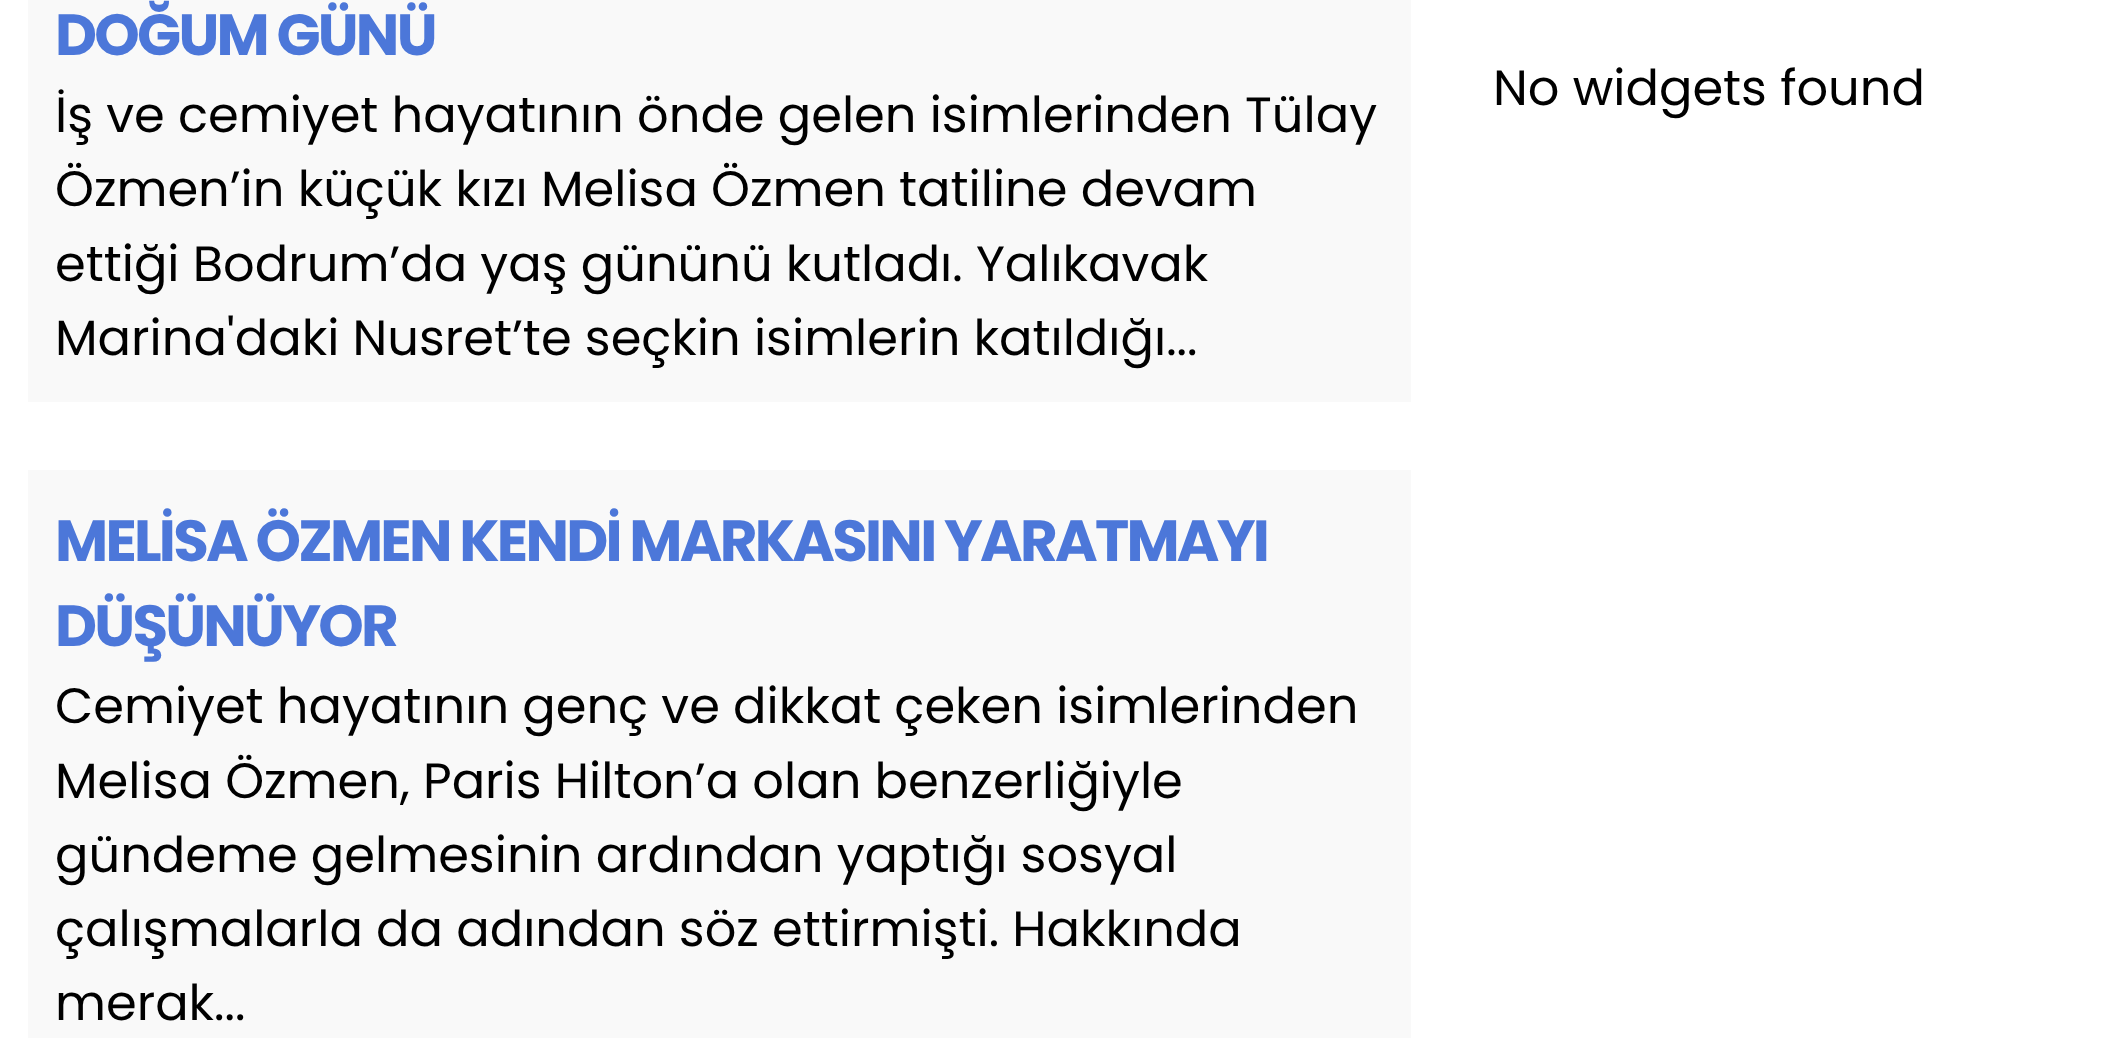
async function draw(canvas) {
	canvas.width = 2107;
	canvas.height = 1038;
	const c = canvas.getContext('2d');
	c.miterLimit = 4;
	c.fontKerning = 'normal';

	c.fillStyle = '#fff';
	c.fillRect(0, 0, 2107, 1038);
	c.fillStyle = '#f9f9f9';
	c.fillRect(28, 0, 1383, 402);
	c.letterSpacing = '-2.75px';
	c.font = 'bold 57.9px Poppins';
	c.fillStyle = '#4c77d9';
	c.fillText('DOĞUM GÜNÜ', 55, 55);
	c.letterSpacing = '0px';
	c.font = '49.5px Poppins';
	c.fillStyle = '#000';
	for (const [text, x, y] of [
		['İş ve cemiyet hayatının önde gelen isimlerinden Tülay', 55, 132],
		['Özmen’in küçük kızı Melisa Özmen tatiline devam', 55, 206],
		['ettiği Bodrum’da yaş gününü kutladı. Yalıkavak', 55, 281],
		['Marina\'daki Nusret’te seçkin isimlerin katıldığı...', 55, 355],
	]) {
		c.fillText(text, x, y);
	}
	c.fillStyle = '#f9f9f9';
	c.fillRect(28, 470, 1383, 568);
	c.letterSpacing = '-2.75px';
	c.font = 'bold 57.9px Poppins';
	c.fillStyle = '#4c77d9';
	c.fillText('MELİSA ÖZMEN KENDİ MARKASINI YARATMAYI', 55, 561);
	c.fillText('DÜŞÜNÜYOR', 55, 646);
	c.letterSpacing = '0px';
	c.font = '49.5px Poppins';
	c.fillStyle = '#000';
	for (const [text, x, y] of [
		['Cemiyet hayatının genç ve dikkat çeken isimlerinden', 55, 723],
		['Melisa Özmen, Paris Hilton’a olan benzerliğiyle', 55, 798],
		['gündeme gelmesinin ardından yaptığı sosyal', 55, 872],
		['çalışmalarla da adından söz ettirmişti. Hakkında', 55, 946],
		['merak...', 55, 1020],
		['No widgets found', 1493, 105],
	]) {
		c.fillText(text, x, y);
	}
}

draw(document.querySelector('canvas'));
